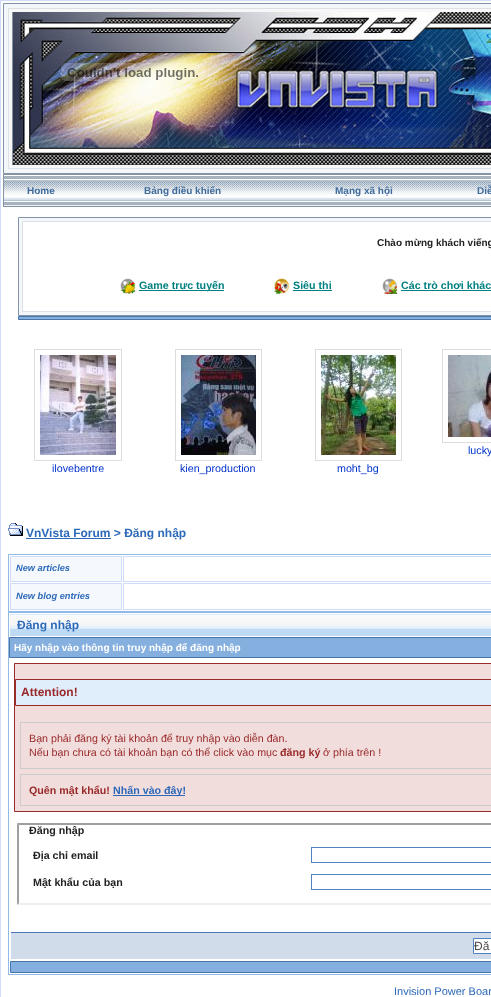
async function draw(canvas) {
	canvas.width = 491;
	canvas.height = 997;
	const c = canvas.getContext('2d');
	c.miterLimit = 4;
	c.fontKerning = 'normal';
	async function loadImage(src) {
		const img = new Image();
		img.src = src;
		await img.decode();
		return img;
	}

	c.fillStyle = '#fff';
	c.fillRect(0, 0, 491, 997);
	c.strokeStyle = '#cedcfa';
	c.strokeRect(0.5, 0.5, 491, 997);
	c.fillStyle = '#f4f7fa';
	c.beginPath();
	c.rect(3.5, 3.5, 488, 170);
	c.fill();
	c.strokeStyle = '#8294a8';
	c.stroke();
	c.fillStyle = '#f7f7f7';
	c.beginPath();
	c.rect(8.5, 8.5, 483, 160);
	c.fill();
	c.strokeStyle = '#dbe1e7';
	c.stroke();
	c.fillStyle = '#8492a1';
	c.fillRect(12, 12, 1, 153);
	c.drawImage(await loadImage('img1.png'), 13, 12, 478, 153);
	c.drawImage(await loadImage('img2.png'), 61, 63, 144, 18);
	c.drawImage(await loadImage('img3.png'), 4, 174, 487, 33);
	c.fillRect(3, 174, 1, 33);
	c.font = 'bold 10px Liberation Sans';
	c.fillStyle = '#3f6c9c';
	for (const [text, x, y] of [
		['Home', 27, 194],
		['Bảng điều khiển', 144, 194],
		['Mạng xã hội', 335, 194],
		['Diễ', 477, 194],
	]) {
		c.fillText(text, x, y);
	}
	c.fillStyle = '#f4f7fa';
	c.beginPath();
	c.rect(18.5, 217.5, 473, 98);
	c.fill();
	c.strokeStyle = '#8294a8';
	c.stroke();
	c.fillStyle = '#fff';
	c.beginPath();
	c.rect(22.5, 221.5, 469, 90);
	c.fill();
	c.strokeStyle = '#dbe1e7';
	c.stroke();
	c.fillStyle = '#222';
	c.fillText('Chào mừng khách viếng', 377, 246);
	c.drawImage(await loadImage('img4.png'), 120, 278, 16, 16);
	c.fillStyle = '#008080';
	c.fillRect(139, 290, 85, 1);
	c.font = 'bold 10.7px Liberation Sans';
	c.fillText('Game trực tuyến', 139, 289);
	c.drawImage(await loadImage('img5.png'), 274, 278, 16, 16);
	c.fillRect(293, 290, 39, 1);
	c.fillText('Siêu thị', 293, 289);
	c.drawImage(await loadImage('img6.png'), 382, 278, 16, 16);
	c.fillText('Các trò chơi khác', 401, 289);
	c.fillRect(401, 290, 90, 1);
	c.fillStyle = '#84afde';
	c.beginPath();
	c.rect(18.5, 316.5, 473, 3);
	c.fill();
	c.strokeStyle = '#4775a7';
	c.stroke();
	c.strokeStyle = '#ddd';
	c.strokeRect(442.5, 349.5, 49, 93);
	c.drawImage(await loadImage('img7.png'), 448, 355, 43, 82);
	c.font = '10.7px Liberation Sans';
	c.fillStyle = '#03c';
	c.fillText('lucky', 468, 454);
	c.strokeRect(34.5, 349.5, 87, 111);
	c.drawImage(await loadImage('img8.png'), 40, 355, 76, 100);
	c.fillText('ilovebentre', 52, 472);
	c.strokeRect(175.5, 349.5, 86, 111);
	c.drawImage(await loadImage('img9.png'), 181, 355, 75, 100);
	c.fillText('kien_production', 180, 472);
	c.strokeRect(315.5, 349.5, 86, 111);
	c.drawImage(await loadImage('img10.png'), 321, 355, 75, 100);
	c.fillText('moht_bg', 337, 472);
	c.drawImage(await loadImage('img11.png'), 8, 523, 15, 13);
	c.fillStyle = '#2d69b9';
	c.fillRect(26, 538, 85, 1);
	c.font = 'bold 12px Liberation Sans';
	c.fillText('VnVista Forum > Đăng nhập', 26, 537);
	c.strokeStyle = '#92bae6';
	c.strokeRect(8.5, 554.5, 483, 57);
	c.fillStyle = '#f5f9fe';
	c.beginPath();
	c.rect(10.5, 556.5, 111, 25);
	c.fill();
	c.strokeStyle = '#cedcfa';
	c.stroke();
	c.font = 'italic bold 9.25px Liberation Sans';
	c.fillStyle = '#2d69b9';
	c.fillText('New articles', 16, 571);
	c.strokeRect(123.5, 556.5, 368, 25);
	c.fillStyle = '#f5f9fe';
	c.beginPath();
	c.rect(10.5, 583.5, 111, 26);
	c.fill();
	c.stroke();
	c.fillStyle = '#2d69b9';
	c.fillText('New blog entries', 16, 599);
	c.strokeRect(123.5, 583.5, 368, 26);
	c.strokeStyle = '#92bae6';
	c.strokeRect(8.5, 612.5, 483, 362);
	c.drawImage(await loadImage('img12.png'), 10, 614, 481, 22);
	c.font = 'bold 12px Liberation Sans';
	c.fillText('Đăng nhập', 17, 629);
	c.fillStyle = '#84afde';
	c.beginPath();
	c.rect(9.5, 637.5, 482, 20);
	c.fill();
	c.strokeStyle = '#4775a7';
	c.stroke();
	c.font = 'bold 10px Liberation Sans';
	c.fillStyle = '#fff';
	c.fillText('Hãy nhập vào thông tin truy nhập để đăng nhập', 14, 651);
	c.fillStyle = '#f2dddd';
	c.beginPath();
	c.rect(14.5, 663.5, 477, 148);
	c.fill();
	c.strokeStyle = '#992a2a';
	c.stroke();
	c.fillStyle = '#e0edfb';
	c.beginPath();
	c.rect(15.5, 679.5, 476, 26);
	c.fill();
	c.stroke();
	c.font = 'bold 12px Liberation Sans';
	c.fillStyle = '#992a2a';
	c.fillText('Attention!', 21, 696);
	c.strokeStyle = '#ccc';
	c.strokeRect(20.5, 722.5, 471, 46);
	c.font = '10.7px Liberation Sans';
	c.fillText('Bạn phải đăng ký tài khoản để truy nhập vào diễn đàn.', 29, 742);
	c.fillText('Nếu bạn chưa có tài khoản bạn có thể click vào mục', 29, 756);
	c.font = 'bold 10.7px Liberation Sans';
	c.fillText('đăng ký', 280, 756);
	c.font = '10.7px Liberation Sans';
	c.fillText('ở phía trên !', 323, 756);
	c.strokeRect(20.5, 774.5, 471, 31);
	c.font = 'bold 10.7px Liberation Sans';
	c.fillText('Quên mật khẩu!', 29, 794);
	c.fillStyle = '#2d69b9';
	c.fillRect(113, 795, 72, 1);
	c.fillText('Nhấn vào đây!', 113, 794);
	c.fillStyle = '#9f9f9f';
	c.beginPath();
	c.moveTo(17, 823);
	c.lineTo(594, 823);
	c.lineTo(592, 825);
	c.lineTo(19, 825);
	c.closePath();
	c.fill();
	c.fillStyle = '#efefef';
	c.beginPath();
	c.moveTo(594, 905);
	c.lineTo(17, 905);
	c.lineTo(19, 903);
	c.lineTo(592, 903);
	c.closePath();
	c.fill();
	c.fillStyle = '#9f9f9f';
	c.beginPath();
	c.moveTo(17, 905);
	c.lineTo(17, 823);
	c.lineTo(19, 825);
	c.lineTo(19, 903);
	c.closePath();
	c.fill();
	c.fillStyle = '#222';
	c.fillText('Đăng nhập', 29, 834);
	c.fillText('Địa chỉ email', 33, 859);
	c.strokeStyle = '#5182c2';
	c.strokeRect(311.5, 847.5, 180, 15);
	c.fillText('Mật khẩu của bạn', 33, 886);
	c.strokeRect(311.5, 874.5, 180, 15);
	for (const [x, y, w, h, color] of [
		[11, 933, 480, 26, '#d1dceb'],
		[10, 932, 481, 1, '#5176b5'],
		[10, 932, 1, 1, '#fff'],
	]) {
		c.fillStyle = color;
		c.fillRect(x, y, w, h);
	}
	c.beginPath();
	c.rect(473.5, 938.5, 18, 15);
	c.fill();
	c.stroke();
	c.font = '12px Liberation Sans';
	c.fillStyle = '#4d4d4d';
	c.fillText('Đă', 474, 950);
	c.fillStyle = '#84afde';
	c.beginPath();
	c.rect(10.5, 961.5, 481, 11);
	c.fill();
	c.strokeStyle = '#4775a7';
	c.stroke();
	c.font = '11px Liberation Sans';
	c.fillStyle = '#2d69b9';
	c.fillText('Invision Power Boar', 394, 995);
}

draw(document.querySelector('canvas'));
